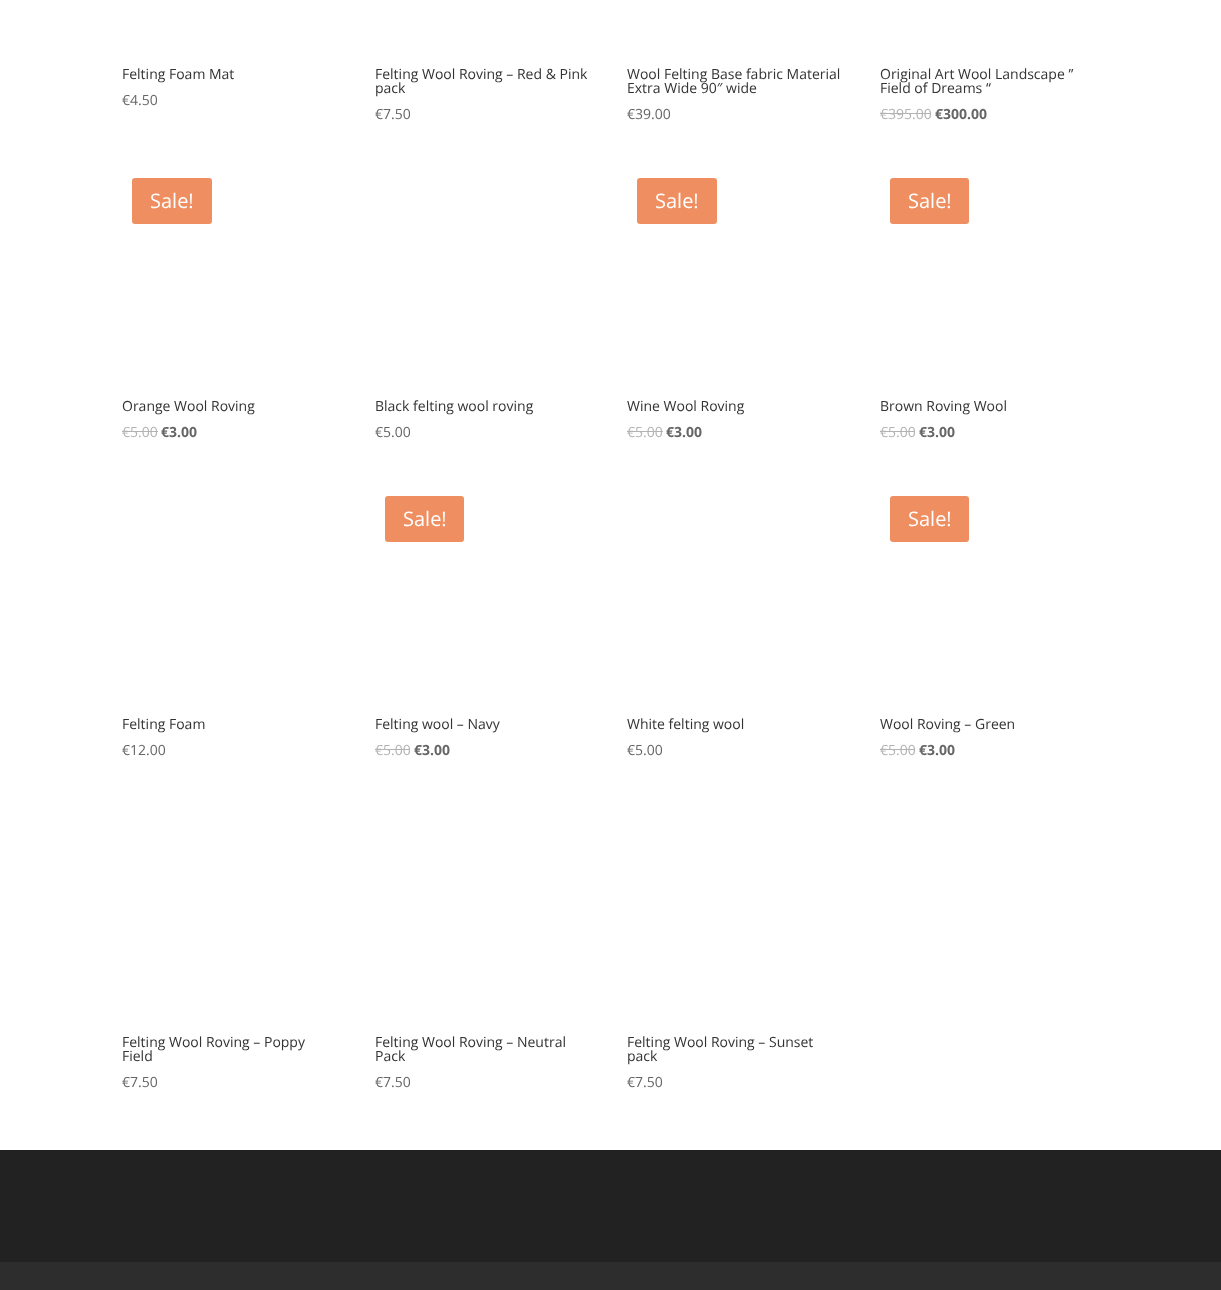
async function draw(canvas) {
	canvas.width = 1221;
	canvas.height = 1290;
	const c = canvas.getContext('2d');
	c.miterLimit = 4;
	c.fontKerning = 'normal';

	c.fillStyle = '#fff';
	c.fillRect(0, 0, 1221, 1290);
	c.font = '14px Open Sans';
	c.fillStyle = '#333';
	c.fillText('Felting Foam Mat', 122, 79);
	c.fillStyle = '#666';
	c.fillText('€4.50', 122, 105);
	c.fillStyle = '#333';
	c.fillText('Felting Wool Roving – Red & Pink', 375, 79);
	c.fillText('pack', 375, 93);
	c.fillStyle = '#666';
	c.fillText('€7.50', 375, 119);
	c.fillStyle = '#333';
	c.fillText('Wool Felting Base fabric Material', 627, 79);
	c.fillText('Extra Wide 90″ wide', 627, 93);
	c.fillStyle = '#666';
	c.fillText('€39.00', 627, 119);
	c.fillStyle = '#333';
	c.fillText('Original Art Wool Landscape ”', 880, 79);
	c.fillText('Field of Dreams “', 880, 93);
	c.fillStyle = '#b3b3b3';
	c.fillText('€395.00', 880, 119);
	c.fillRect(880, 113, 51, 1);
	c.font = 'bold 14px Open Sans';
	c.fillStyle = '#666';
	c.fillText('€300.00', 935, 119);
	c.fillStyle = '#ef8f61';
	c.beginPath();
	c.roundRect(132, 178, 80, 46, 3);
	c.fill();
	c.font = '20px Open Sans';
	c.fillStyle = '#fff';
	c.fillText('Sale!', 150, 208);
	c.font = '14px Open Sans';
	c.fillStyle = '#333';
	c.fillText('Orange Wool Roving', 122, 411);
	c.fillStyle = '#b3b3b3';
	c.fillText('€5.00', 122, 437);
	c.fillRect(122, 431, 36, 1);
	c.font = 'bold 14px Open Sans';
	c.fillStyle = '#666';
	c.fillText('€3.00', 161, 437);
	c.font = '14px Open Sans';
	c.fillStyle = '#333';
	c.fillText('Black felting wool roving', 375, 411);
	c.fillStyle = '#666';
	c.fillText('€5.00', 375, 437);
	c.fillStyle = '#ef8f61';
	c.beginPath();
	c.roundRect(637, 178, 80, 46, 3);
	c.fill();
	c.font = '20px Open Sans';
	c.fillStyle = '#fff';
	c.fillText('Sale!', 655, 208);
	c.font = '14px Open Sans';
	c.fillStyle = '#333';
	c.fillText('Wine Wool Roving', 627, 411);
	c.fillStyle = '#b3b3b3';
	c.fillText('€5.00', 627, 437);
	c.fillRect(627, 431, 36, 1);
	c.font = 'bold 14px Open Sans';
	c.fillStyle = '#666';
	c.fillText('€3.00', 666, 437);
	c.fillStyle = '#ef8f61';
	c.beginPath();
	c.roundRect(890, 178, 79, 46, 3);
	c.fill();
	c.font = '20px Open Sans';
	c.fillStyle = '#fff';
	c.fillText('Sale!', 908, 208);
	c.font = '14px Open Sans';
	c.fillStyle = '#333';
	c.fillText('Brown Roving Wool', 880, 411);
	c.fillStyle = '#b3b3b3';
	c.fillText('€5.00', 880, 437);
	c.fillRect(880, 431, 35, 1);
	c.font = 'bold 14px Open Sans';
	c.fillStyle = '#666';
	c.fillText('€3.00', 919, 437);
	c.font = '14px Open Sans';
	c.fillStyle = '#333';
	c.fillText('Felting Foam', 122, 729);
	c.fillStyle = '#666';
	c.fillText('€12.00', 122, 755);
	c.fillStyle = '#ef8f61';
	c.beginPath();
	c.roundRect(385, 496, 79, 46, 3);
	c.fill();
	c.font = '20px Open Sans';
	c.fillStyle = '#fff';
	c.fillText('Sale!', 403, 526);
	c.font = '14px Open Sans';
	c.fillStyle = '#333';
	c.fillText('Felting wool – Navy', 375, 729);
	c.fillStyle = '#b3b3b3';
	c.fillText('€5.00', 375, 755);
	c.fillRect(375, 749, 35, 1);
	c.font = 'bold 14px Open Sans';
	c.fillStyle = '#666';
	c.fillText('€3.00', 414, 755);
	c.font = '14px Open Sans';
	c.fillStyle = '#333';
	c.fillText('White felting wool', 627, 729);
	c.fillStyle = '#666';
	c.fillText('€5.00', 627, 755);
	c.fillStyle = '#ef8f61';
	c.beginPath();
	c.roundRect(890, 496, 79, 46, 3);
	c.fill();
	c.font = '20px Open Sans';
	c.fillStyle = '#fff';
	c.fillText('Sale!', 908, 526);
	c.font = '14px Open Sans';
	c.fillStyle = '#333';
	c.fillText('Wool Roving – Green', 880, 729);
	c.fillStyle = '#b3b3b3';
	c.fillText('€5.00', 880, 755);
	c.fillRect(880, 749, 35, 1);
	c.font = 'bold 14px Open Sans';
	c.fillStyle = '#666';
	c.fillText('€3.00', 919, 755);
	c.font = '14px Open Sans';
	c.fillStyle = '#333';
	c.fillText('Felting Wool Roving – Poppy', 122, 1047);
	c.fillText('Field', 122, 1061);
	c.fillStyle = '#666';
	c.fillText('€7.50', 122, 1087);
	c.fillStyle = '#333';
	c.fillText('Felting Wool Roving – Neutral', 375, 1047);
	c.fillText('Pack', 375, 1061);
	c.fillStyle = '#666';
	c.fillText('€7.50', 375, 1087);
	c.fillStyle = '#333';
	c.fillText('Felting Wool Roving – Sunset', 627, 1047);
	c.fillText('pack', 627, 1061);
	c.fillStyle = '#666';
	c.fillText('€7.50', 627, 1087);
	c.fillStyle = '#222';
	c.fillRect(0, 1150, 1221, 112);
	c.fillStyle = '#2d2d2d';
	c.fillRect(0, 1262, 1221, 28);
}

draw(document.querySelector('canvas'));
